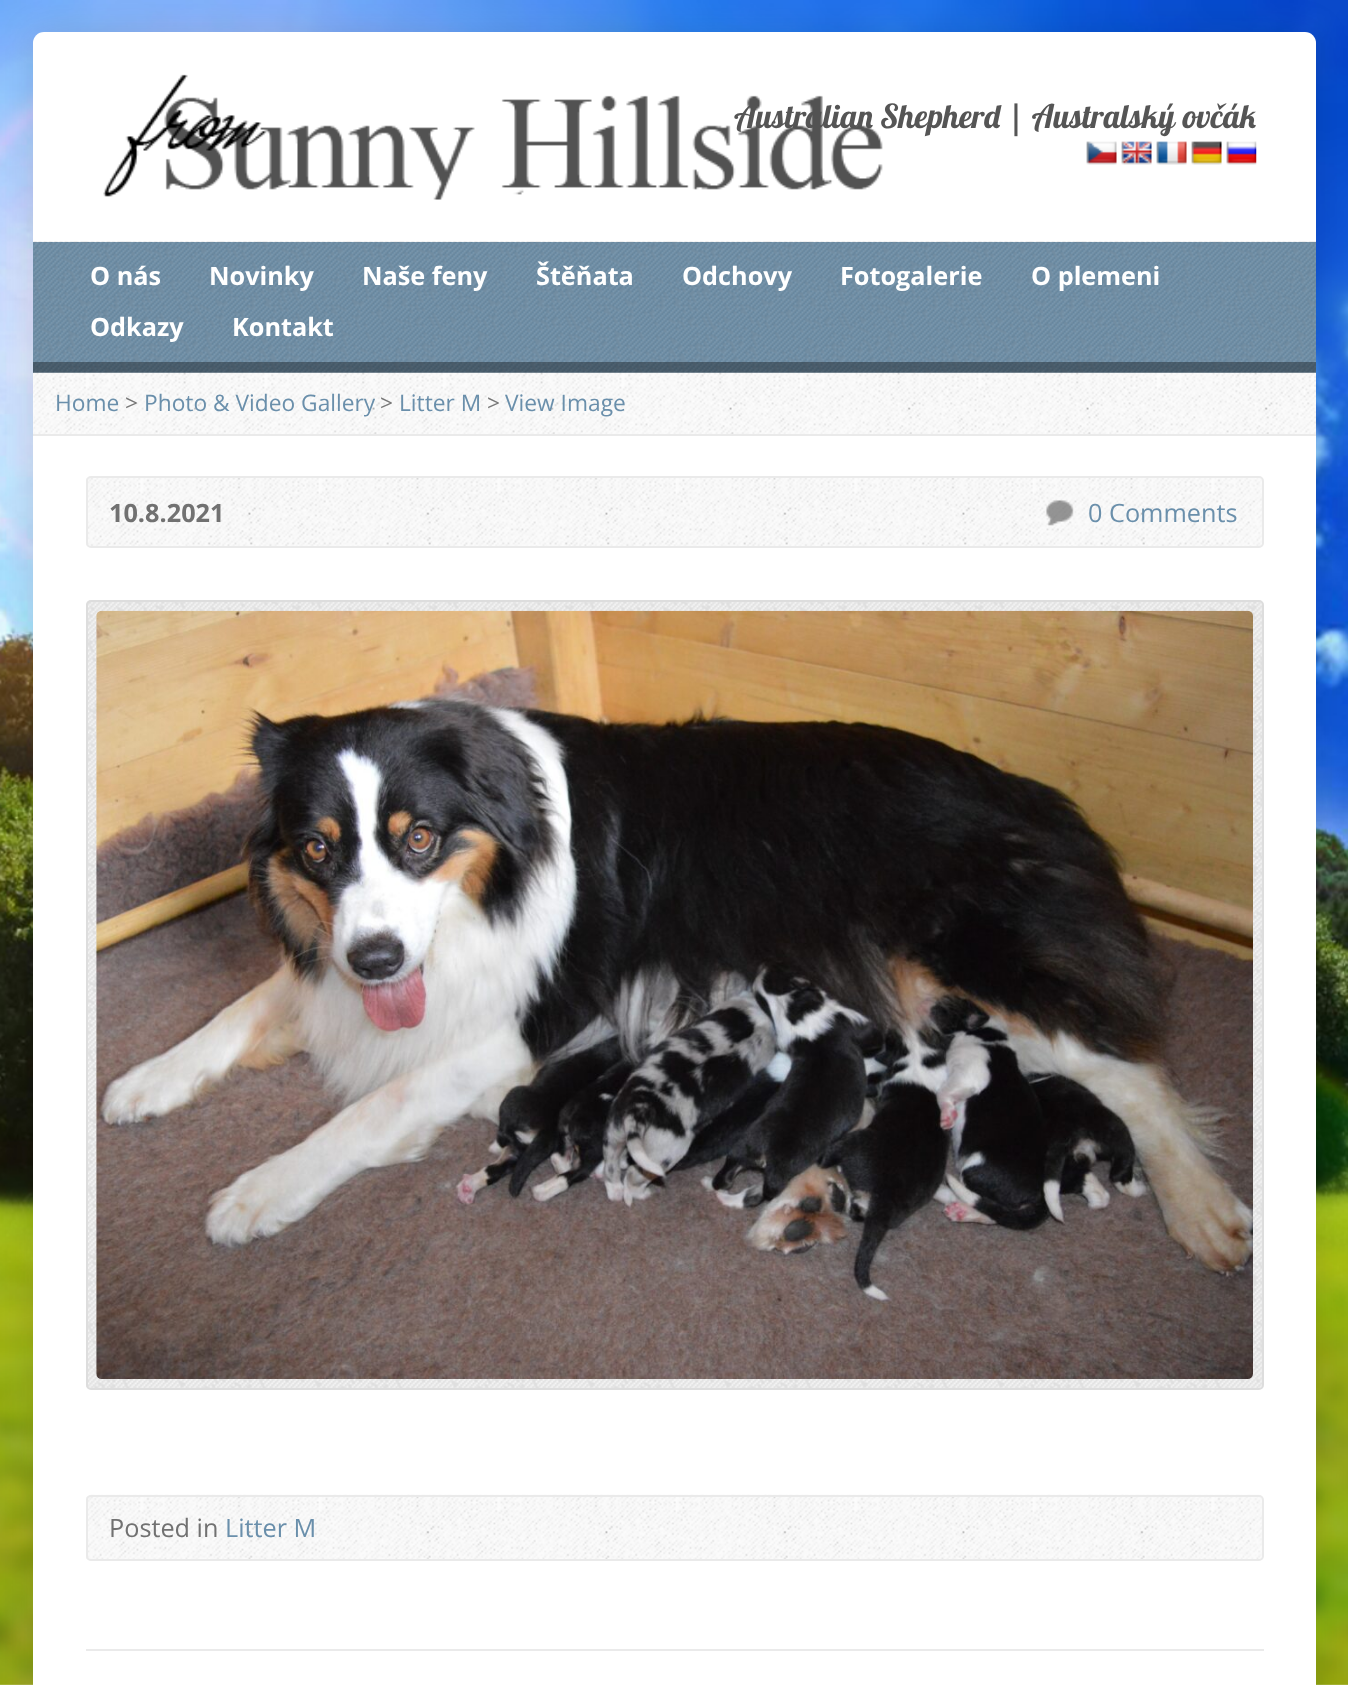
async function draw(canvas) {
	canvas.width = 1348;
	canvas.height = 1685;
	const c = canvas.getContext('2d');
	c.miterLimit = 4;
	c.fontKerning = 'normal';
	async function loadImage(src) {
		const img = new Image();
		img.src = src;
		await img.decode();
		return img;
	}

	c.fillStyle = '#fff';
	c.fillRect(0, 0, 1348, 1685);
	c.drawImage(await loadImage('img1.png'), 0, 0, 1348, 1685);
	c.fillStyle = '#0000001f';
	c.filter = 'blur(17.5px)';
	c.beginPath();
	c.roundRect(33, 32, 1283, 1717, 11);
	c.fill();
	c.filter = 'none';
	c.fillStyle = '#fff';
	c.beginPath();
	c.roundRect(33, 32, 1283, 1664, 11);
	c.fill();
	c.font = '32.75px Lobster';
	c.fillStyle = '#555';
	c.fillText('Australian Shepherd | Australský ovčák', 734, 128);
	c.drawImage(await loadImage('img2.png'), 103, 74, 780, 126);
	c.drawImage(await loadImage('img3.png'), 1086, 141, 31, 24);
	c.drawImage(await loadImage('img4.png'), 1121, 141, 31, 24);
	c.drawImage(await loadImage('img5.png'), 1156, 141, 31, 24);
	c.drawImage(await loadImage('img6.png'), 1191, 141, 31, 24);
	c.drawImage(await loadImage('img7.png'), 1226, 141, 31, 24);
	c.fillStyle = '#6a8fab';
	c.fillRect(33, 242, 1283, 131);
	c.drawImage(await loadImage('img8.png'), 33, 241, 1283, 132);
	c.font = 'bold 25.25px Open Sans';
	c.fillStyle = '#fff';
	for (const [text, x, y] of [
		['O nás', 90, 285],
		['Novinky', 209, 285],
		['Naše feny', 362, 285],
		['Štěňata', 536, 285],
		['Odchovy', 682, 285],
		['Fotogalerie', 840, 285],
		['O plemeni', 1031, 285],
		['Odkazy', 90, 336],
		['Kontakt', 232, 336],
	]) {
		c.fillText(text, x, y);
	}
	c.fillStyle = '#00000059';
	c.fillRect(33, 362, 1283, 11);
	c.drawImage(await loadImage('img9.png'), 33, 372, 1283, 62);
	c.fillStyle = '#eaeaea';
	c.fillRect(33, 434, 1283, 2);
	c.font = '22.75px Open Sans';
	c.fillStyle = '#6a8fab';
	c.fillText('Home', 55, 411);
	c.fillStyle = '#777';
	c.fillText('>', 125, 411);
	c.fillStyle = '#6a8fab';
	c.fillText('Photo & Video Gallery', 144, 411);
	c.fillStyle = '#777';
	c.fillText('>', 380, 411);
	c.fillStyle = '#6a8fab';
	c.fillText('Litter M', 399, 411);
	c.fillStyle = '#777';
	c.fillText('>', 487, 411);
	c.fillStyle = '#6a8fab';
	c.fillText('View Image', 505, 411);
	c.drawImage(await loadImage('img10.png'), 86, 476, 1177, 72);
	c.beginPath();
	c.roundRect(87, 477, 1176, 70, 4);
	c.strokeStyle = '#eaeaea';
	c.lineWidth = 2;
	c.stroke();
	c.font = 'bold 25.25px Open Sans';
	c.fillStyle = '#717171';
	c.fillText('10.8.2021', 109, 522);
	c.drawImage(await loadImage('img11.png'), 1046, 500, 28, 26);
	c.font = '25.25px Open Sans';
	c.fillStyle = '#6a8fab';
	c.fillText('0 Comments', 1088, 522);
	c.drawImage(await loadImage('img12.png'), 86, 600, 1178, 790);
	c.beginPath();
	c.roundRect(87, 601, 1176, 788, 4);
	c.strokeStyle = '#ddd';
	c.stroke();
	c.drawImage(await loadImage('img13.png'), 96, 610, 1157, 769);
	c.drawImage(await loadImage('img14.png'), 86, 1494, 1177, 67);
	c.beginPath();
	c.roundRect(87, 1496, 1176, 64, 4);
	c.strokeStyle = '#eaeaea';
	c.stroke();
	c.fillStyle = '#717171';
	c.fillText('Posted in', 109, 1537);
	c.fillStyle = '#6a8fab';
	c.fillText('Litter M', 225, 1537);
	c.fillStyle = '#eaeaea';
	c.fillRect(86, 1649, 1178, 2);
}

draw(document.querySelector('canvas'));
